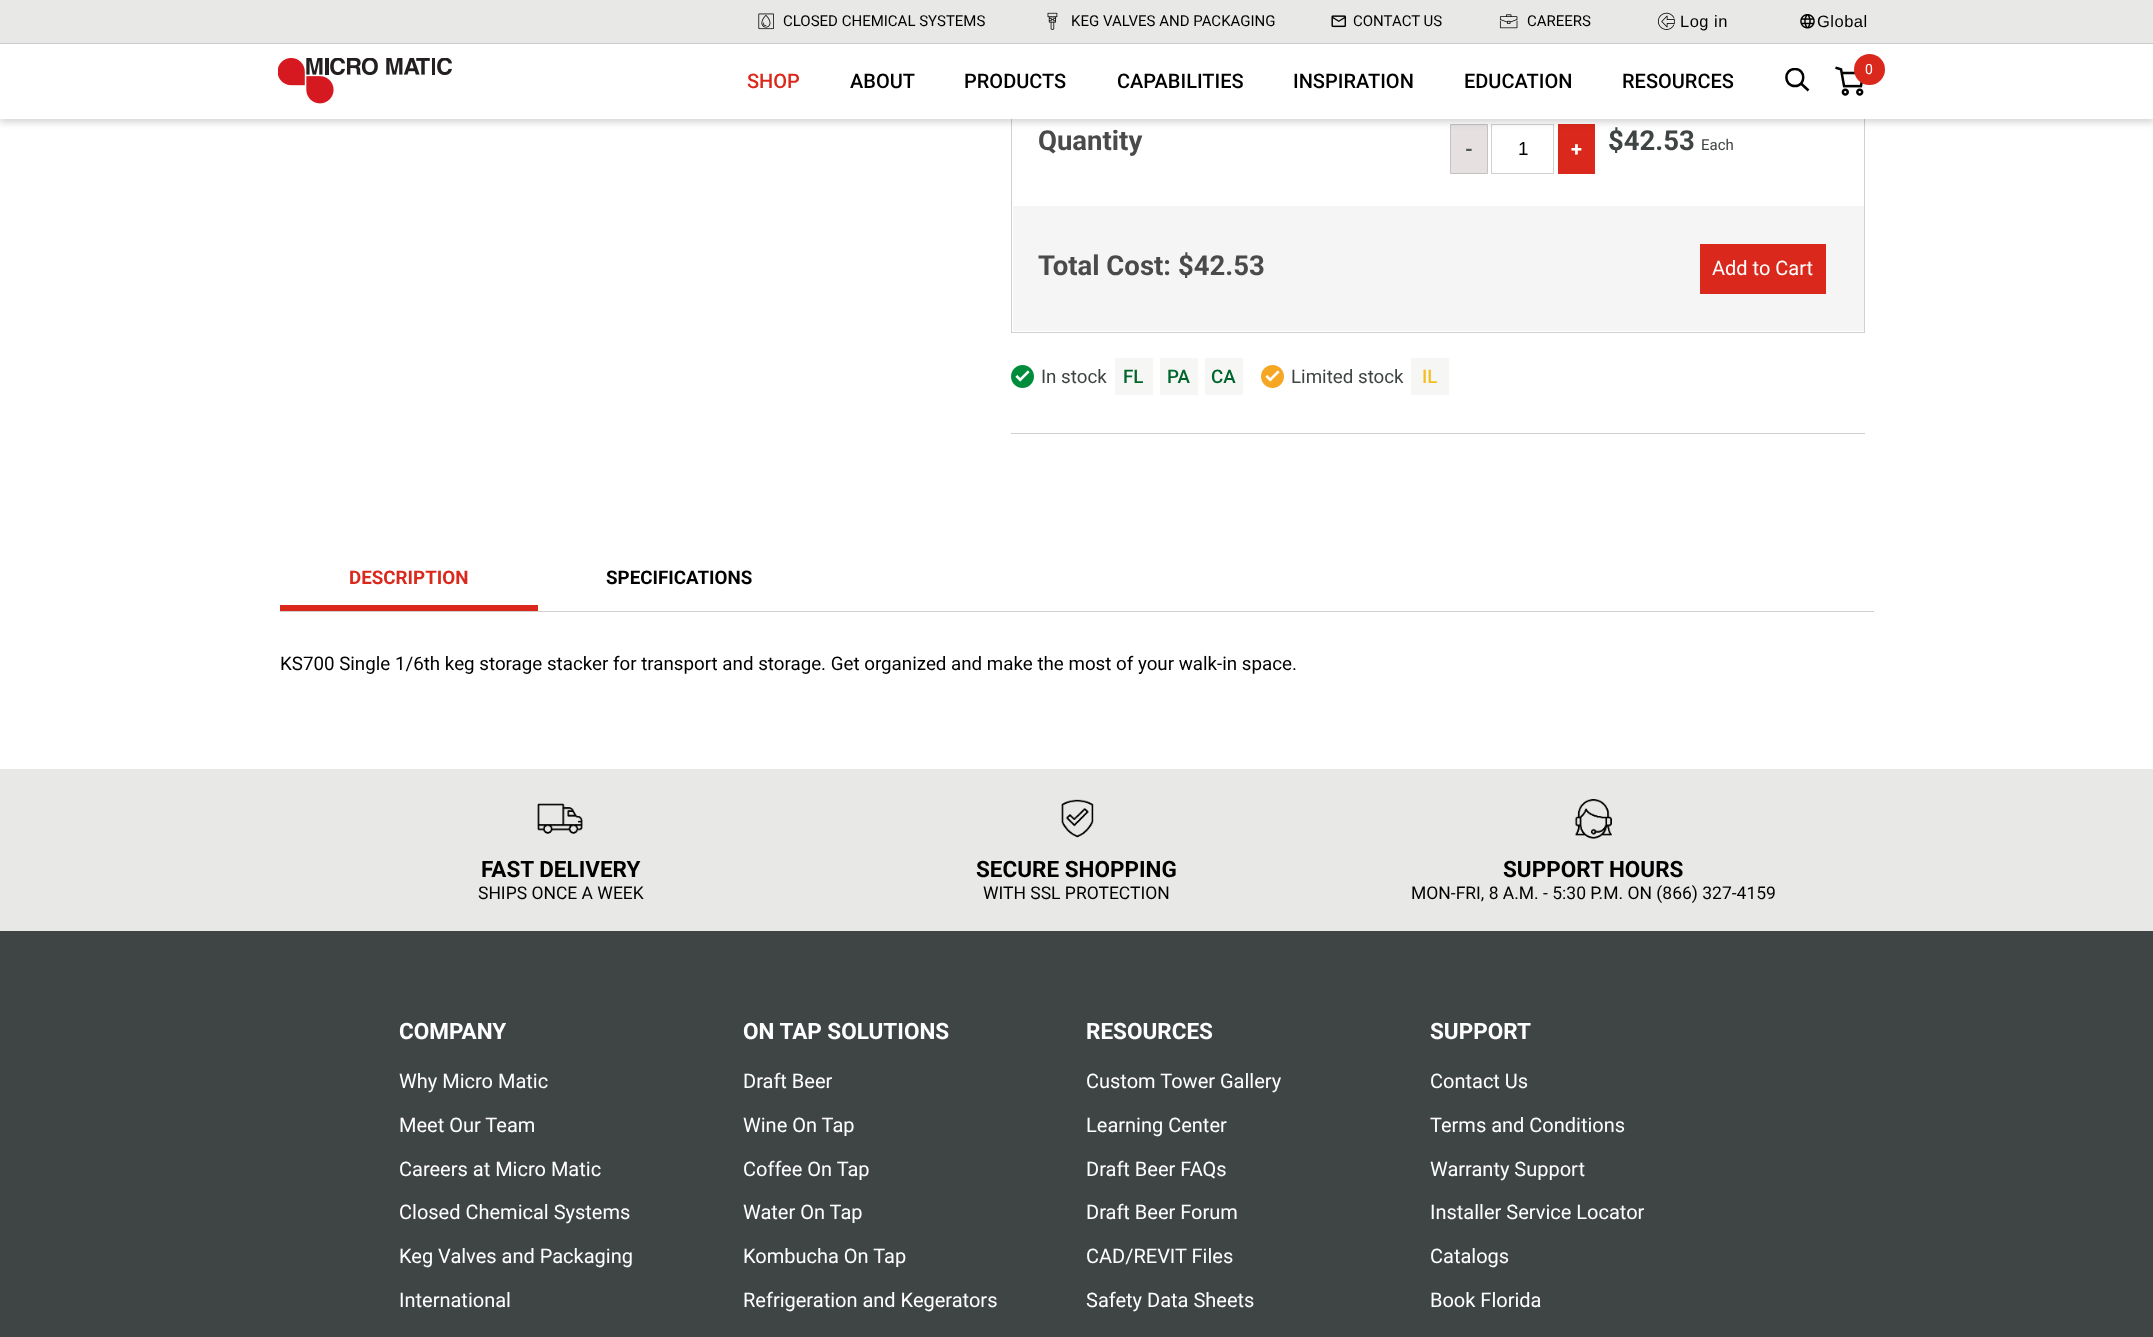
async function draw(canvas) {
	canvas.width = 2153;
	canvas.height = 1337;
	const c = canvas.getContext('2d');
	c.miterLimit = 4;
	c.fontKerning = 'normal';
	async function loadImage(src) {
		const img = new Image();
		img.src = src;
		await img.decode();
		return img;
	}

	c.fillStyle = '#fff';
	c.fillRect(0, 0, 2153, 1337);
	c.strokeStyle = '#d0d0ce';
	c.strokeRect(1011.5, 103.5, 853, 229);
	c.fillStyle = '#e6e0e0';
	c.beginPath();
	c.rect(1450.5, 124.5, 37, 49);
	c.fill();
	c.strokeStyle = '#c3c3c3';
	c.stroke();
	c.strokeStyle = '#d0d0ce';
	c.strokeRect(1491.5, 124.5, 62, 49);
	c.fillStyle = '#da291c';
	c.fillRect(1558, 124, 37, 50);
	c.fillStyle = '#00000026';
	c.filter = 'blur(3px)';
	c.beginPath();
	c.rect(0, 4, 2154, 119);
	c.fill();
	c.filter = 'none';
	for (const [x, y, w, h, color] of [
		[0, 44, 2153, 75, '#fff'],
		[0, 0, 2153, 43, '#e8e8e7'],
		[0, 43, 2153, 1, '#ccc'],
	]) {
		c.fillStyle = color;
		c.fillRect(x, y, w, h);
	}
	c.drawImage(await loadImage('img1.png'), 758, 13, 16, 17);
	c.font = '15px Roboto';
	c.fillStyle = '#000';
	c.fillText('CLOSED CHEMICAL SYSTEMS', 783, 26);
	c.drawImage(await loadImage('img2.png'), 1047, 12, 11, 18);
	c.fillText('KEG VALVES AND PACKAGING', 1071, 26);
	c.drawImage(await loadImage('img3.png'), 1331, 15, 15, 13);
	c.fillText('CONTACT US', 1353, 26);
	c.drawImage(await loadImage('img4.png'), 1499, 14, 19, 15);
	c.fillText('CAREERS', 1527, 26);
	c.drawImage(await loadImage('img5.png'), 1657, 12, 18, 18);
	c.letterSpacing = '0.5px';
	c.font = '16.5px Liberation Sans';
	c.fillText('Log in', 1680, 27);
	c.drawImage(await loadImage('img6.png'), 1800, 14, 15, 15);
	c.fillText('Global', 1817, 27);
	c.drawImage(await loadImage('img7.png'), 278, 58, 174, 46);
	c.letterSpacing = '0px';
	c.font = '500 20px Roboto';
	c.fillStyle = '#da291c';
	c.fillText('SHOP', 747, 88);
	c.fillStyle = '#000';
	for (const [text, x, y] of [
		['ABOUT', 850, 88],
		['PRODUCTS', 964, 88],
		['CAPABILITIES', 1117, 88],
		['INSPIRATION', 1293, 88],
		['EDUCATION', 1464, 88],
		['RESOURCES', 1622, 88],
	]) {
		c.fillText(text, x, y);
	}
	c.beginPath();
	c.moveTo(1808.5, 90.5);
	c.lineTo(1801, 83.5);
	c.strokeStyle = '#000';
	c.lineWidth = 2.5;
	c.lineJoin = 'round';
	c.stroke();
	c.save();
	c.beginPath();
	c.rect(1785, 68, 25, 25);
	c.clip();
	c.beginPath();
	c.moveTo(1795, 69);
	c.bezierCurveTo(1806, 69, 1806, 86, 1795, 86);
	c.bezierCurveTo(1783.5, 86, 1783.5, 69, 1795, 69);
	c.closePath();
	c.lineCap = 'round';
	c.stroke();
	c.restore();
	c.drawImage(await loadImage('img8.png'), 1835, 66, 29, 30);
	c.fillStyle = '#da291c';
	c.beginPath();
	c.arc(1869.5, 69.5, 15.5, 0, 2 * Math.PI);
	c.fill();
	c.font = '14px Roboto';
	c.fillStyle = '#fff';
	c.fillText('0', 1865, 74);
	c.font = 'bold 27.5px Roboto';
	c.fillStyle = '#4a4a4a';
	c.fillText('Quantity', 1038, 150);
	c.font = 'bold 20px Roboto';
	c.fillStyle = '#525757';
	c.fillText('-', 1465, 156);
	c.font = '18.75px Liberation Sans';
	c.fillStyle = '#000';
	c.fillText('1', 1518, 155);
	c.font = 'bold 20px Roboto';
	c.fillStyle = '#fff';
	c.fillText('+', 1571, 156);
	c.font = 'bold 27.5px Roboto';
	c.fillStyle = '#3f4444';
	c.fillText('$42.53', 1608, 150);
	c.font = '15px Roboto';
	c.fillText('Each', 1701, 150);
	c.fillStyle = '#f5f5f5';
	c.fillRect(1013, 206, 851, 125);
	c.font = 'bold 27.5px Roboto';
	c.fillStyle = '#4a4a4a';
	c.fillText('Total Cost: $42.53', 1038, 275);
	c.fillStyle = '#da291c';
	c.fillRect(1700, 244, 126, 50);
	c.font = '20px Roboto';
	c.fillStyle = '#fff';
	c.fillText('Add to Cart', 1712, 275);
	c.fillStyle = '#d0d0ce';
	c.fillRect(1011, 433, 854, 1);
	c.drawImage(await loadImage('img9.png'), 1011, 365, 23, 23);
	c.font = '18.75px Roboto';
	c.fillStyle = '#3f4444';
	c.fillText('In stock', 1041, 383);
	c.fillStyle = '#f6f6f5';
	c.fillRect(1115, 358, 38, 37);
	c.font = '500 18.75px Roboto';
	c.fillStyle = '#00662c';
	c.fillText('FL', 1123, 383);
	c.fillStyle = '#f6f6f5';
	c.fillRect(1160, 358, 38, 37);
	c.fillStyle = '#00662c';
	c.fillText('PA', 1167, 383);
	c.fillStyle = '#f6f6f5';
	c.fillRect(1205, 358, 38, 37);
	c.fillStyle = '#00662c';
	c.fillText('CA', 1211, 383);
	c.drawImage(await loadImage('img10.png'), 1261, 365, 23, 23);
	c.font = '18.75px Roboto';
	c.fillStyle = '#3f4444';
	c.fillText('Limited stock', 1291, 383);
	c.fillStyle = '#f6f6f5';
	c.fillRect(1411, 358, 38, 37);
	c.font = '500 18.75px Roboto';
	c.fillStyle = '#f5be23';
	c.fillText('IL', 1422, 383);
	c.fillStyle = '#d0d0ce';
	c.fillRect(280, 611, 1594, 1);
	c.fillStyle = '#da291c';
	c.fillRect(280, 605, 258, 6);
	c.font = 'bold 18.75px Roboto';
	c.fillText('DESCRIPTION', 349, 584);
	c.fillStyle = '#000';
	c.fillText('SPECIFICATIONS', 606, 584);
	c.font = '18.75px Roboto';
	c.fillText('KS700 Single 1/6th keg storage stacker for transport and storage. Get organized and make the most of your walk-in space.', 280, 670);
	c.fillStyle = '#e8e8e7';
	c.fillRect(0, 769, 2153, 162);
	c.drawImage(await loadImage('img11.png'), 537, 803, 46, 31);
	c.font = 'bold 22.5px Roboto';
	c.fillStyle = '#000';
	c.fillText('FAST DELIVERY', 481, 877);
	c.font = '17.5px Roboto';
	c.fillText('SHIPS ONCE A WEEK', 478, 899);
	c.drawImage(await loadImage('img12.png'), 1061, 799, 33, 39);
	c.font = 'bold 22.5px Roboto';
	c.fillText('SECURE SHOPPING', 976, 877);
	c.font = '17.5px Roboto';
	c.fillText('WITH SSL PROTECTION', 983, 899);
	c.drawImage(await loadImage('img13.png'), 1574, 799, 38, 40);
	c.font = 'bold 22.5px Roboto';
	c.fillText('SUPPORT HOURS', 1503, 877);
	c.font = '17.5px Roboto';
	c.fillText('MON-FRI, 8 A.M. - 5:30 P.M. ON (866) 327-4159', 1411, 899);
	c.fillStyle = '#3f4444';
	c.fillRect(0, 931, 2153, 406);
	c.font = 'bold 22.5px Roboto';
	c.fillStyle = '#fff';
	c.fillText('COMPANY', 399, 1039);
	c.font = '20px Roboto';
	for (const [text, x, y] of [
		['Why Micro Matic', 399, 1088],
		['Meet Our Team', 399, 1132],
		['Careers at Micro Matic', 399, 1176],
		['Closed Chemical Systems', 399, 1219],
		['Keg Valves and Packaging', 399, 1263],
		['International', 399, 1307],
	]) {
		c.fillText(text, x, y);
	}
	c.font = 'bold 22.5px Roboto';
	c.fillText('ON TAP SOLUTIONS', 743, 1039);
	c.font = '20px Roboto';
	for (const [text, x, y] of [
		['Draft Beer', 743, 1088],
		['Wine On Tap', 743, 1132],
		['Coffee On Tap', 743, 1176],
		['Water On Tap', 743, 1219],
		['Kombucha On Tap', 743, 1263],
		['Refrigeration and Kegerators', 743, 1307],
	]) {
		c.fillText(text, x, y);
	}
	c.font = 'bold 22.5px Roboto';
	c.fillText('RESOURCES', 1086, 1039);
	c.font = '20px Roboto';
	for (const [text, x, y] of [
		['Custom Tower Gallery', 1086, 1088],
		['Learning Center', 1086, 1132],
		['Draft Beer FAQs', 1086, 1176],
		['Draft Beer Forum', 1086, 1219],
		['CAD/REVIT Files', 1086, 1263],
		['Safety Data Sheets', 1086, 1307],
	]) {
		c.fillText(text, x, y);
	}
	c.font = 'bold 22.5px Roboto';
	c.fillText('SUPPORT', 1430, 1039);
	c.font = '20px Roboto';
	for (const [text, x, y] of [
		['Contact Us', 1430, 1088],
		['Terms and Conditions', 1430, 1132],
		['Warranty Support', 1430, 1176],
		['Installer Service Locator', 1430, 1219],
		['Catalogs', 1430, 1263],
		['Book Florida', 1430, 1307],
	]) {
		c.fillText(text, x, y);
	}
}

draw(document.querySelector('canvas'));
